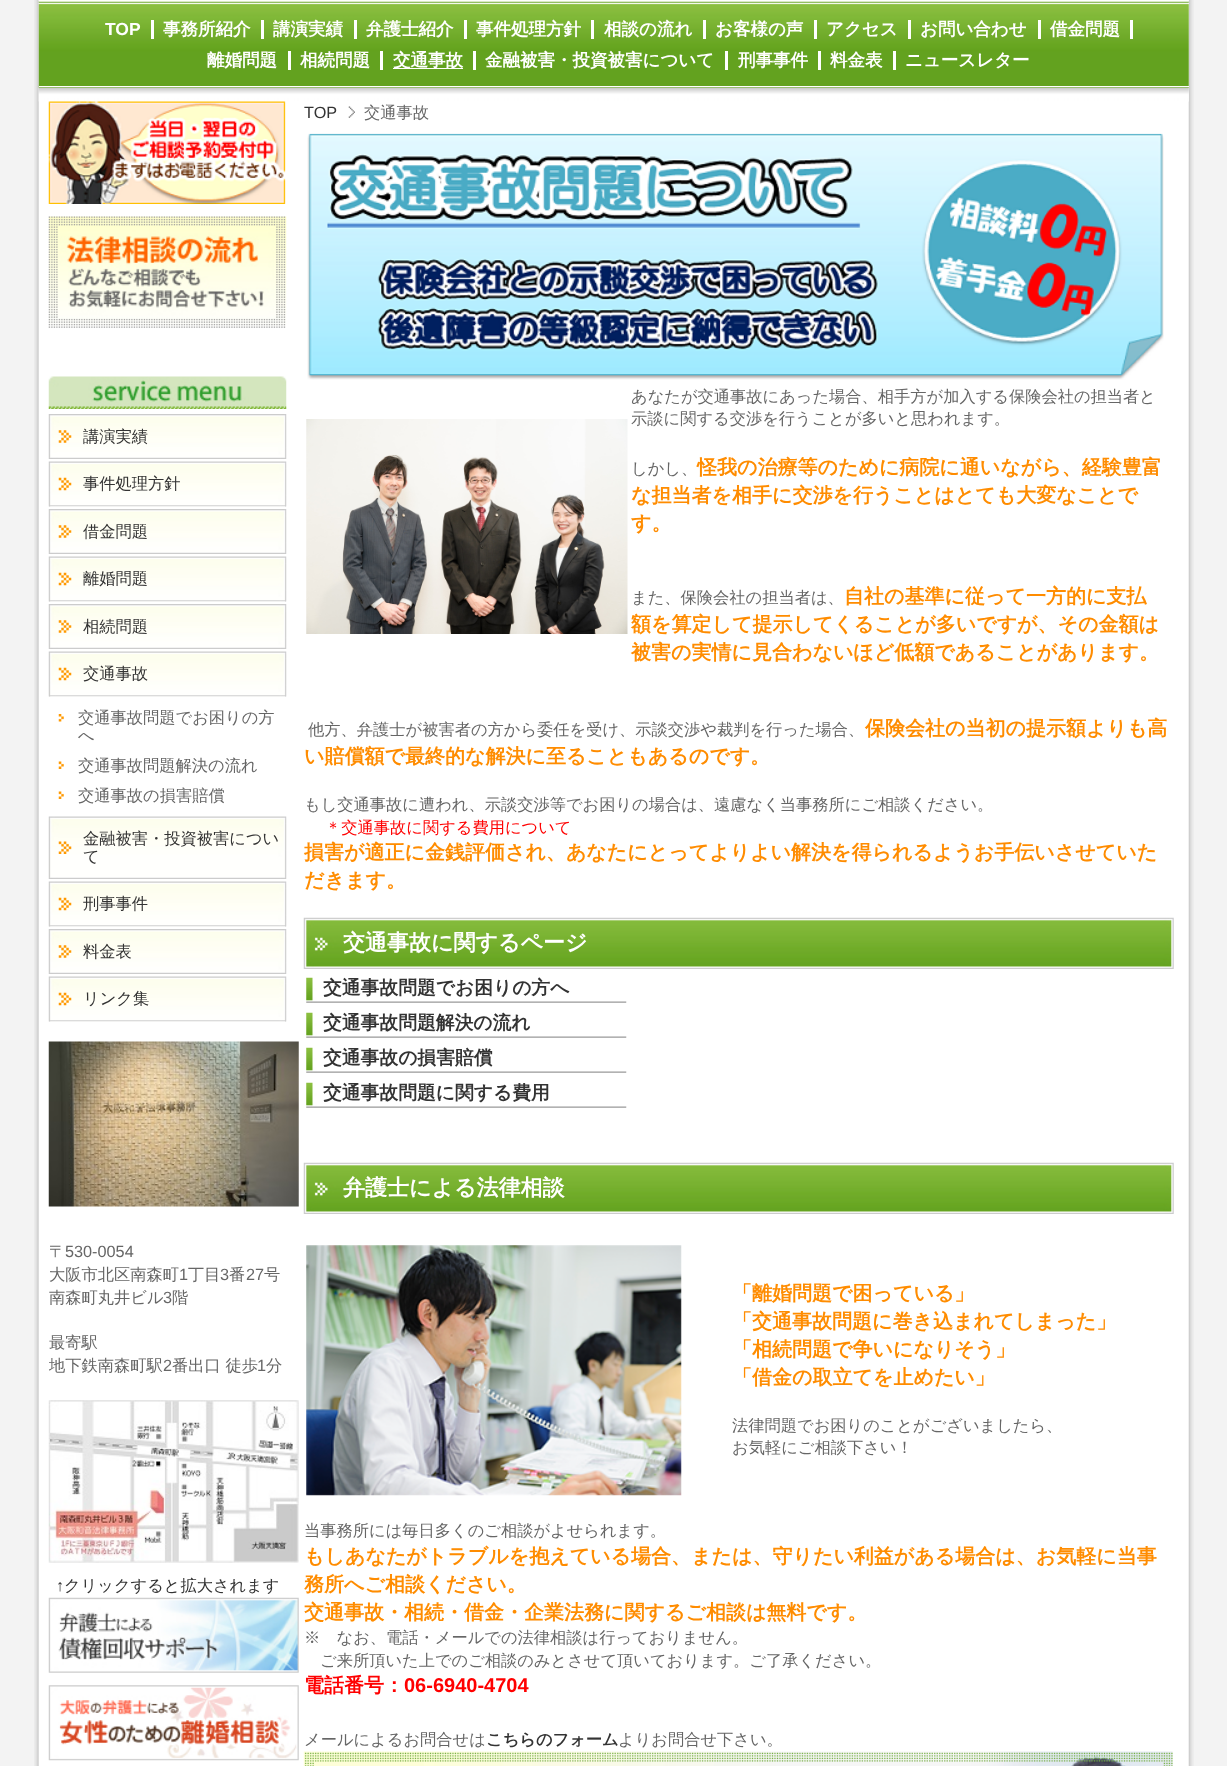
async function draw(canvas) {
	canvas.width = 1227;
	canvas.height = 1766;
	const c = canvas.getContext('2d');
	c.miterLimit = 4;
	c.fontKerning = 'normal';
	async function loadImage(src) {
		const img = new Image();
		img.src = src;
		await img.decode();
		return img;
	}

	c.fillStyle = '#f3f3f3';
	c.fillRect(0, 0, 1227, 1766);
	c.drawImage(await loadImage('img1.png'), 34, 0, 1160, 1766);
	c.drawImage(await loadImage('img3.png'), 38, 1, 1151, 87);
	c.drawImage(await loadImage('img2.png'), 38, 0, 1151, 2);
	c.fillStyle = '#fff';
	c.fillRect(39, 86, 1150, 1);
	c.fillRect(151, 20, 3, 19);
	c.font = 'bold 17.5px Liberation Sans';
	c.fillText('TOP', 105, 35);
	c.fillRect(261, 20, 3, 19);
	c.font = 'bold 17.5px WenQuanYi Zen Hei';
	c.fillText('事務所紹介', 163, 35);
	c.fillRect(354, 20, 3, 19);
	c.fillText('講演実績', 273, 35);
	c.fillRect(464, 20, 3, 19);
	c.fillText('弁護士紹介', 366, 35);
	c.fillRect(591, 20, 3, 19);
	c.fillText('事件処理方針', 476, 35);
	c.fillRect(703, 20, 3, 19);
	c.fillText('相談の流れ', 604, 35);
	c.fillRect(814, 20, 3, 19);
	c.fillText('お客様の声', 715, 35);
	c.fillRect(908, 20, 3, 19);
	c.fillText('アクセス', 826, 35);
	c.fillRect(1038, 20, 3, 19);
	c.fillText('お問い合わせ', 920, 35);
	c.fillRect(1130, 20, 3, 19);
	c.fillText('借金問題', 1050, 35);
	c.fillRect(288, 51, 3, 19);
	c.fillText('離婚問題', 207, 66);
	c.fillRect(380, 51, 3, 19);
	c.fillText('相続問題', 300, 66);
	c.fillRect(473, 51, 3, 19);
	c.fillRect(393, 68, 70, 1);
	c.fillText('交通事故', 393, 66);
	c.fillRect(725, 51, 3, 19);
	c.fillText('金融被害・投資被害について', 485, 66);
	c.fillRect(818, 51, 3, 19);
	c.fillText('刑事事件', 738, 66);
	c.fillRect(893, 51, 3, 19);
	c.fillText('料金表', 830, 66);
	c.fillText('ニュースレター', 905, 66);
	c.drawImage(await loadImage('img4.png'), 38, 87, 1151, 15);
	c.drawImage(await loadImage('img5.png'), 48, 101, 238, 103);
	c.drawImage(await loadImage('img6.png'), 48, 216, 239, 112);
	c.drawImage(await loadImage('img7.png'), 48, 376, 239, 33);
	c.drawImage(await loadImage('img8.png'), 48, 414, 239, 45);
	c.drawImage(await loadImage('img9.png'), 49, 457, 237, 2);
	c.drawImage(await loadImage('img10.png'), 58, 430, 14, 13);
	c.font = '500 16.25px WenQuanYi Zen Hei';
	c.fillStyle = '#333';
	c.fillText('講演実績', 83, 442);
	c.drawImage(await loadImage('img11.png'), 48, 461, 239, 46);
	c.drawImage(await loadImage('img12.png'), 49, 505, 237, 2);
	c.drawImage(await loadImage('img13.png'), 58, 477, 14, 14);
	c.fillText('事件処理方針', 83, 489);
	c.drawImage(await loadImage('img14.png'), 48, 509, 239, 45);
	c.drawImage(await loadImage('img9.png'), 49, 552, 237, 2);
	c.drawImage(await loadImage('img15.png'), 58, 525, 14, 13);
	c.fillText('借金問題', 83, 537);
	c.drawImage(await loadImage('img11.png'), 48, 556, 239, 46);
	c.drawImage(await loadImage('img12.png'), 49, 600, 237, 2);
	c.drawImage(await loadImage('img13.png'), 58, 572, 14, 14);
	c.fillText('離婚問題', 83, 584);
	c.drawImage(await loadImage('img16.png'), 48, 604, 239, 45);
	c.drawImage(await loadImage('img9.png'), 49, 647, 237, 2);
	c.drawImage(await loadImage('img10.png'), 58, 620, 14, 13);
	c.fillText('相続問題', 83, 632);
	c.drawImage(await loadImage('img11.png'), 48, 651, 239, 46);
	c.drawImage(await loadImage('img12.png'), 49, 695, 237, 2);
	c.drawImage(await loadImage('img13.png'), 58, 667, 14, 14);
	c.fillText('交通事故', 83, 679);
	c.drawImage(await loadImage('img17.png'), 58, 714, 6, 8);
	c.fillStyle = '#666';
	c.fillText('交通事故問題でお困りの方', 78, 723);
	c.fillText('へ', 78, 741);
	c.drawImage(await loadImage('img18.png'), 58, 761, 6, 8);
	c.fillText('交通事故問題解決の流れ', 78, 771);
	c.drawImage(await loadImage('img18.png'), 58, 791, 6, 8);
	c.fillText('交通事故の損害賠償', 78, 801);
	c.drawImage(await loadImage('img19.png'), 48, 816, 239, 63);
	c.drawImage(await loadImage('img9.png'), 49, 877, 237, 2);
	c.drawImage(await loadImage('img20.png'), 58, 841, 14, 13);
	c.fillStyle = '#333';
	c.fillText('金融被害・投資被害につい', 83, 844);
	c.fillText('て', 83, 862);
	c.drawImage(await loadImage('img11.png'), 48, 881, 239, 46);
	c.drawImage(await loadImage('img12.png'), 49, 925, 237, 2);
	c.drawImage(await loadImage('img13.png'), 58, 897, 14, 14);
	c.fillText('刑事事件', 83, 909);
	c.drawImage(await loadImage('img14.png'), 48, 929, 239, 45);
	c.drawImage(await loadImage('img9.png'), 49, 972, 237, 2);
	c.drawImage(await loadImage('img15.png'), 58, 945, 14, 13);
	c.fillText('料金表', 83, 957);
	c.drawImage(await loadImage('img21.png'), 48, 976, 239, 46);
	c.drawImage(await loadImage('img12.png'), 49, 1020, 237, 2);
	c.drawImage(await loadImage('img13.png'), 58, 992, 14, 14);
	c.fillText('リンク集', 83, 1004);
	c.drawImage(await loadImage('img22.png'), 48, 1041, 251, 166);
	c.fillStyle = '#666';
	c.fillText('〒', 49, 1257);
	c.font = '16.25px Liberation Sans';
	c.fillText('530-0054', 65, 1257);
	c.font = '500 16.25px WenQuanYi Zen Hei';
	c.fillText('大阪市北区南森町', 49, 1280);
	c.font = '16.25px Liberation Sans';
	c.fillText('1', 179, 1280);
	c.font = '500 16.25px WenQuanYi Zen Hei';
	c.fillText('丁目', 188, 1280);
	c.font = '16.25px Liberation Sans';
	c.fillText('3', 220, 1280);
	c.font = '500 16.25px WenQuanYi Zen Hei';
	c.fillText('番', 229, 1280);
	c.font = '16.25px Liberation Sans';
	c.fillText('27', 246, 1280);
	c.font = '500 16.25px WenQuanYi Zen Hei';
	c.fillText('号', 264, 1280);
	c.fillText('南森町丸井ビル', 49, 1303);
	c.font = '16.25px Liberation Sans';
	c.fillText('3', 163, 1303);
	c.font = '500 16.25px WenQuanYi Zen Hei';
	for (const [text, x, y] of [
		['階', 172, 1303],
		['最寄駅', 49, 1348],
		['地下鉄南森町駅', 49, 1371],
	]) {
		c.fillText(text, x, y);
	}
	c.font = '16.25px Liberation Sans';
	c.fillText('2', 163, 1371);
	c.font = '500 16.25px WenQuanYi Zen Hei';
	c.fillText('番出口 徒歩', 172, 1371);
	c.font = '16.25px Liberation Sans';
	c.fillText('1', 257, 1371);
	c.font = '500 16.25px WenQuanYi Zen Hei';
	c.fillText('分', 266, 1371);
	c.drawImage(await loadImage('img23.png'), 48, 1400, 251, 163);
	c.font = '16.25px Liberation Sans';
	c.fillStyle = '#333';
	c.fillText('↑', 56, 1591);
	c.font = '500 16.25px WenQuanYi Zen Hei';
	c.fillText('クリックすると拡大されます', 64, 1591);
	c.drawImage(await loadImage('img24.png'), 48, 1597, 251, 76);
	c.drawImage(await loadImage('img25.png'), 48, 1685, 251, 76);
	c.font = '16.25px Liberation Sans';
	c.fillText('TOP', 304, 118);
	c.drawImage(await loadImage('img26.png'), 348, 106, 7, 12);
	c.font = '500 16.25px WenQuanYi Zen Hei';
	c.fillStyle = '#666';
	c.fillText('交通事故', 364, 118);
	c.drawImage(await loadImage('img27.png'), 307, 133, 857, 247);
	c.drawImage(await loadImage('img28.png'), 306, 419, 322, 215);
	for (const [text, x, y] of [
		['あなたが交通事故にあった場合、相手方が加入する保険会社の担当者と', 631, 402],
		['示談に関する交渉を行うことが多いと思われます。', 631, 424],
		['しかし、', 631, 474],
	]) {
		c.fillText(text, x, y);
	}
	c.font = 'bold 20px WenQuanYi Zen Hei';
	c.fillStyle = '#ff8c00';
	for (const [text, x, y] of [
		['怪我の治療等のために病院に通いながら、経験豊富', 697, 474],
		['な担当者を相手に交渉を行うことはとても大変なことで', 631, 502],
		['す。', 631, 530],
	]) {
		c.fillText(text, x, y);
	}
	c.font = '500 16.25px WenQuanYi Zen Hei';
	c.fillStyle = '#666';
	c.fillText('また、保険会社の担当者は、', 631, 603);
	c.font = 'bold 20px WenQuanYi Zen Hei';
	c.fillStyle = '#ff8c00';
	for (const [text, x, y] of [
		['自社の基準に従って一方的に支払', 844, 603],
		['額を算定して提示してくることが多いですが、その金額は', 631, 631],
		['被害の実情に見合わないほど低額であることがあります。', 631, 659],
	]) {
		c.fillText(text, x, y);
	}
	c.font = '500 16.25px WenQuanYi Zen Hei';
	c.fillStyle = '#666';
	c.fillText('他方、弁護士が被害者の方から委任を受け、示談交渉や裁判を行った場合、', 308, 735);
	c.font = 'bold 20px WenQuanYi Zen Hei';
	c.fillStyle = '#ff8c00';
	c.fillText('保険会社の当初の提示額よりも高', 865, 735);
	c.fillText('い賠償額で最終的な解決に至ることもあるのです。', 304, 763);
	c.font = '500 16.25px WenQuanYi Zen Hei';
	c.fillStyle = '#666';
	c.fillText('もし交通事故に遭われ、示談交渉等でお困りの場合は、遠慮なく当事務所にご相談ください。', 304, 810);
	c.fillStyle = '#f00';
	c.fillText('＊交通事故に関する費用について', 325, 833);
	c.font = 'bold 20px WenQuanYi Zen Hei';
	c.fillStyle = '#ff8c00';
	c.fillText('損害が適正に金銭評価され、あなたにとってよりよい解決を得られるようお手伝いさせていた', 304, 859);
	c.fillText('だきます。', 304, 887);
	c.drawImage(await loadImage('img29.png'), 303, 917, 871, 52);
	c.font = 'bold 22px WenQuanYi Zen Hei';
	c.fillStyle = '#fff';
	c.fillText('交通事故に関するページ', 343, 950);
	c.drawImage(await loadImage('img30.png'), 306, 977, 321, 26);
	c.font = 'bold 18.8px WenQuanYi Zen Hei';
	c.fillStyle = '#333';
	c.fillText('交通事故問題でお困りの方へ', 323, 994);
	c.drawImage(await loadImage('img30.png'), 306, 1012, 321, 26);
	c.fillText('交通事故問題解決の流れ', 323, 1029);
	c.drawImage(await loadImage('img30.png'), 306, 1047, 321, 26);
	c.fillText('交通事故の損害賠償', 323, 1064);
	c.drawImage(await loadImage('img30.png'), 306, 1082, 321, 26);
	c.fillText('交通事故問題に関する費用', 323, 1099);
	c.drawImage(await loadImage('img29.png'), 303, 1162, 871, 52);
	c.font = 'bold 22px WenQuanYi Zen Hei';
	c.fillStyle = '#fff';
	c.fillText('弁護士による法律相談', 343, 1195);
	c.drawImage(await loadImage('img31.png'), 306, 1245, 376, 251);
	c.font = 'bold 20px WenQuanYi Zen Hei';
	c.fillStyle = '#ff8c00';
	for (const [text, x, y] of [
		['「離婚問題で困っている」', 732, 1300],
		['「交通事故問題に巻き込まれてしまった」', 732, 1328],
		['「相続問題で争いになりそう」', 732, 1356],
		['「借金の取立てを止めたい」', 732, 1384],
	]) {
		c.fillText(text, x, y);
	}
	c.font = '500 16.25px WenQuanYi Zen Hei';
	c.fillStyle = '#666';
	for (const [text, x, y] of [
		['法律問題でお困りのことがございましたら、', 732, 1431],
		['お気軽にご相談下さい！', 732, 1453],
		['当事務所には毎日多くのご相談がよせられます。', 304, 1536],
	]) {
		c.fillText(text, x, y);
	}
	c.font = 'bold 20px WenQuanYi Zen Hei';
	c.fillStyle = '#ff8c00';
	for (const [text, x, y] of [
		['もしあなたがトラブルを抱えている場合、または、守りたい利益がある場合は、お気軽に当事', 304, 1563],
		['務所へご相談ください。', 304, 1591],
		['交通事故・相続・借金・企業法務に関するご相談は無料です。', 304, 1619],
	]) {
		c.fillText(text, x, y);
	}
	c.font = '500 16.25px WenQuanYi Zen Hei';
	c.fillStyle = '#666';
	c.fillText('※　なお、電話・メールでの法律相談は行っておりません。', 304, 1643);
	c.fillText('ご来所頂いた上でのご相談のみとさせて頂いております。ご了承ください。', 320, 1666);
	c.font = 'bold 20px WenQuanYi Zen Hei';
	c.fillStyle = '#f00';
	c.fillText('電話番号：', 304, 1692);
	c.font = 'bold 20px Liberation Sans';
	c.fillText('06-6940-4704', 404, 1692);
	c.font = '500 16.25px WenQuanYi Zen Hei';
	c.fillStyle = '#666';
	c.fillText('メールによるお問合せは', 304, 1745);
	c.font = 'bold 16.25px WenQuanYi Zen Hei';
	c.fillStyle = '#333';
	c.fillText('こちらのフォーム', 486, 1745);
	c.font = '500 16.25px WenQuanYi Zen Hei';
	c.fillStyle = '#666';
	c.fillText('よりお問合せ下さい。', 618, 1745);
	c.drawImage(await loadImage('img32.png'), 303, 1751, 870, 15);
}

draw(document.querySelector('canvas'));
